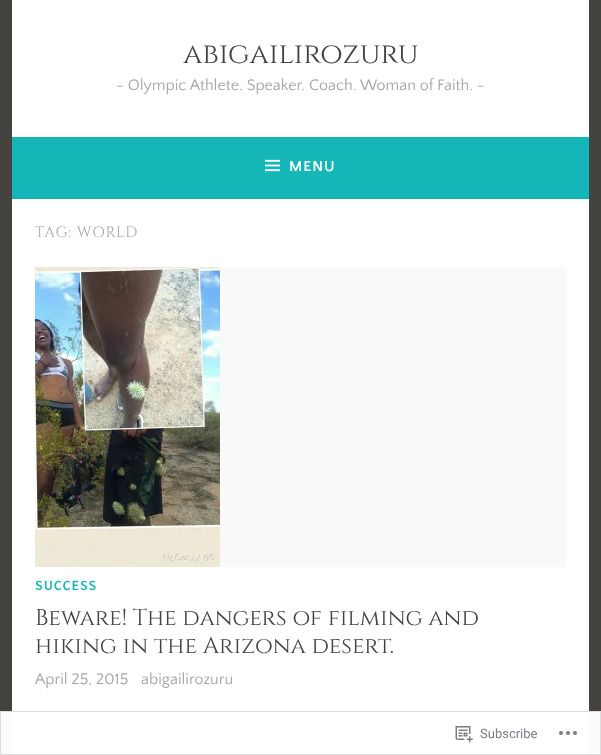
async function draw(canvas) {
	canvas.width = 601;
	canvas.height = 755;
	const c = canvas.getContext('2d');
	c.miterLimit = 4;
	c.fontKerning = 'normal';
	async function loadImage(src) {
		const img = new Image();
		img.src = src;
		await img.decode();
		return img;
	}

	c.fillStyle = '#444340';
	c.fillRect(0, 0, 601, 755);
	c.fillStyle = '#fbfbfb';
	c.fillRect(0, 711, 601, 44);
	c.fillStyle = '#fff';
	c.fillRect(12, 0, 577, 137);
	c.font = '29px Cinzel';
	c.fillStyle = '#444340';
	c.fillText('abigailirozuru', 183, 63);
	c.font = '16px Quattrocento Sans';
	c.fillStyle = '#a8a6a1';
	c.fillText('- Olympic Athlete. Speaker. Coach. Woman of Faith. -', 116, 90);
	c.fillStyle = '#15b6b8';
	c.fillRect(12, 137, 577, 60);
	c.fillStyle = '#14b1b2';
	c.fillRect(12, 197, 577, 2);
	c.drawImage(await loadImage('img1.png'), 265, 159, 15, 13);
	c.letterSpacing = '1px';
	c.font = 'bold 15px Quattrocento Sans';
	c.fillStyle = '#fff';
	c.fillText('MENU', 289, 171);
	c.fillRect(12, 199, 577, 556);
	c.font = '15px Cinzel';
	c.fillStyle = '#a8a6a1';
	c.fillText('TAG: WORLD', 35, 237);
	c.fillStyle = '#f8f9f8';
	c.fillRect(220, 267, 346, 300);
	c.drawImage(await loadImage('img2.png'), 35, 267, 185, 300);
	c.font = '600 14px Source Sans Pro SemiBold';
	c.fillStyle = '#15b6b8';
	c.fillText('SUCCESS', 35, 590);
	c.letterSpacing = '0px';
	c.font = '23px Cinzel';
	c.fillStyle = '#444340';
	c.fillText('Beware! The dangers of filming and', 35, 625);
	c.fillText('hiking in the Arizona desert.', 35, 653);
	c.font = '16px Quattrocento Sans';
	c.fillStyle = '#a8a6a1';
	c.fillText('April 25, 2015', 35, 684);
	c.fillText('abigailirozuru', 141, 684);
	c.strokeStyle = '#dcdcdefa';
	c.strokeRect(0.5, 711.5, 600, 43);
	c.drawImage(await loadImage('img3.png'), 455, 726, 18, 17);
	c.font = '13px Roboto';
	c.fillStyle = '#7b7f84';
	c.fillText('Subscribe', 480, 738);
	c.drawImage(await loadImage('img4.png'), 559, 731, 18, 4);
}

draw(document.querySelector('canvas'));
